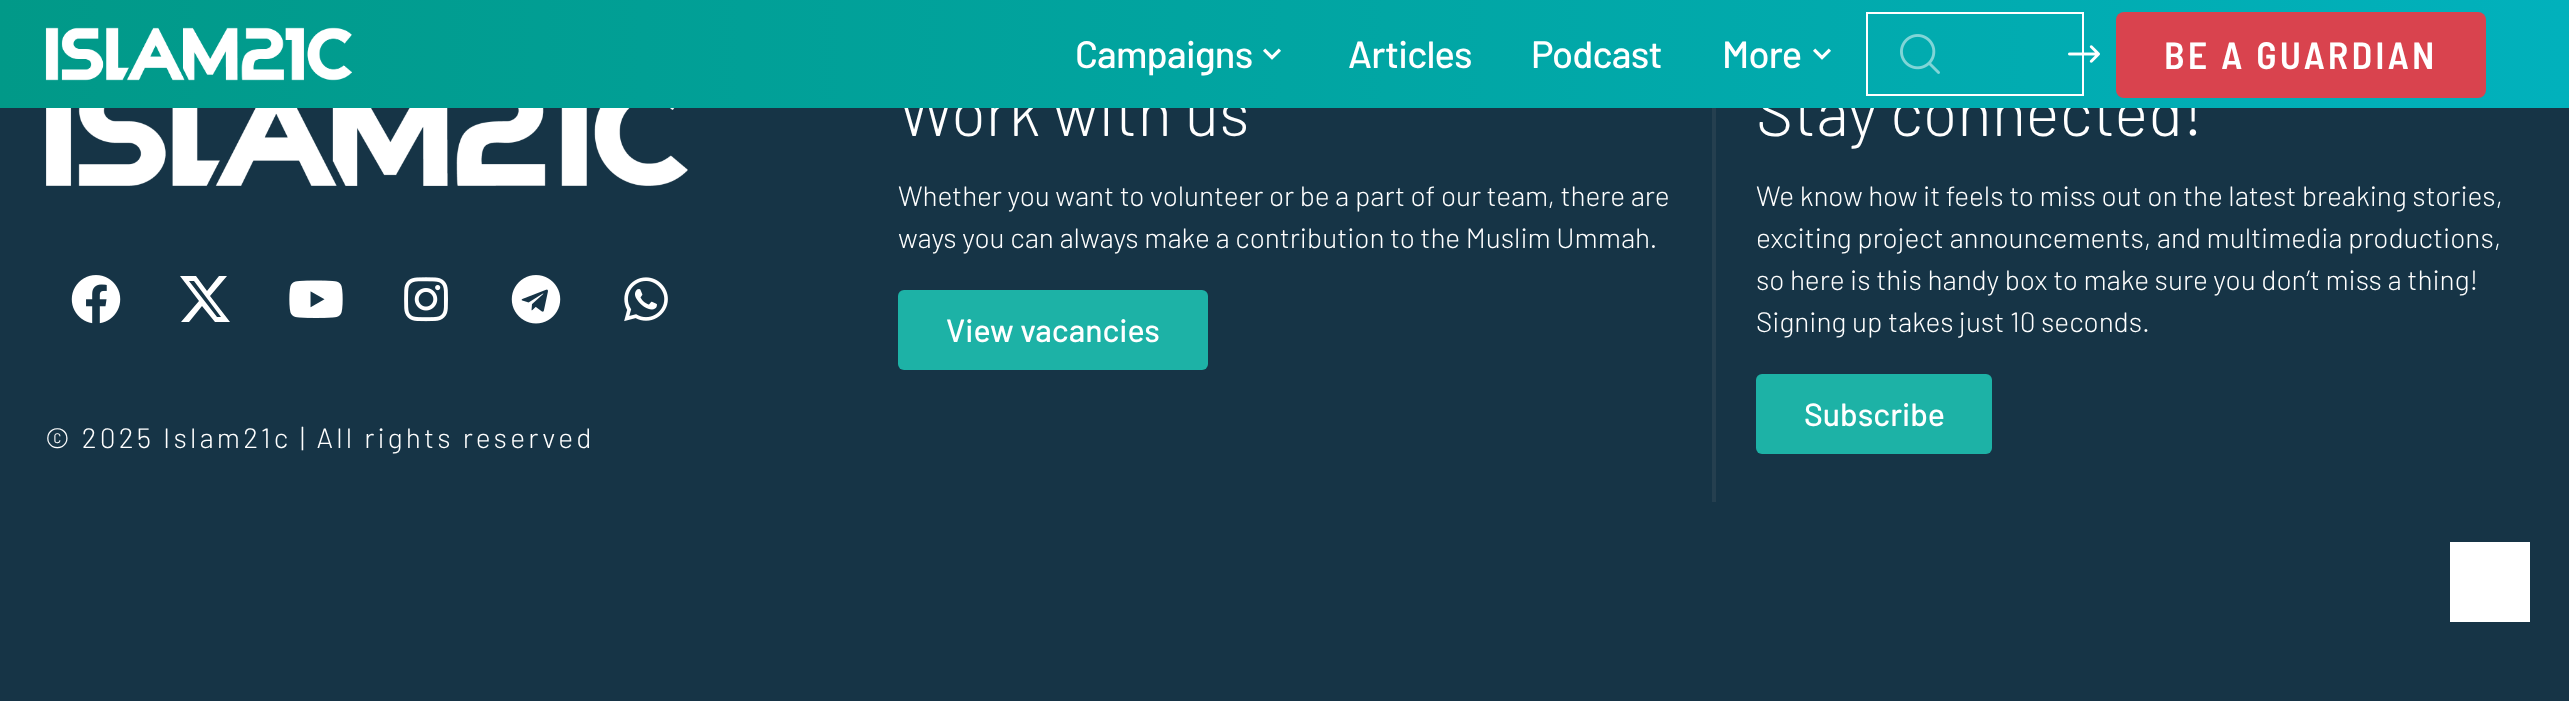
async function draw(canvas) {
	canvas.width = 2569;
	canvas.height = 701;
	const c = canvas.getContext('2d');
	c.miterLimit = 4;
	c.fontKerning = 'normal';
	async function loadImage(src) {
		const img = new Image();
		img.src = src;
		await img.decode();
		return img;
	}
	let gradient;

	c.fillStyle = '#163446';
	c.fillRect(0, 0, 2569, 701);
	c.font = '300 64px Barlow';
	c.fillStyle = '#fff';
	c.fillText('Work with us', 898, 136);
	c.fillText('Stay connected!', 1756, 136);
	gradient = c.createLinearGradient(0, 54, 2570, 54);
	gradient.addColorStop(0, '#019988');
	gradient.addColorStop(1, '#01b1bc');
	c.fillStyle = gradient;
	c.fillRect(0, 0, 2569, 108);
	c.drawImage(await loadImage('img1.png'), 45, 27, 307, 54);
	c.letterSpacing = '-0.75px';
	c.font = '500 38px Barlow';
	c.fillStyle = '#fff';
	c.fillText('Campaigns', 1075, 68);
	c.drawImage(await loadImage('img2.png'), 1263, 48, 18, 12);
	for (const [text, x, y] of [
		['Articles', 1348, 68],
		['Podcast', 1531, 68],
		['More', 1722, 68],
	]) {
		c.fillText(text, x, y);
	}
	c.drawImage(await loadImage('img3.png'), 1813, 48, 18, 12);
	c.strokeStyle = '#fff';
	c.lineWidth = 2;
	c.strokeRect(1867, 13, 216, 82);
	c.drawImage(await loadImage('img4.png'), 1900, 34, 40, 40);
	c.drawImage(await loadImage('img5.png'), 2068, 45, 32, 18);
	c.fillStyle = '#d9434e';
	c.beginPath();
	c.roundRect(2116, 12, 370, 86, 8);
	c.fill();
	c.letterSpacing = '3.2px';
	c.font = '600 38px Barlow Semi Condensed';
	c.fillStyle = '#fff';
	c.fillText('BE A GUARDIAN', 2164, 69);
	c.letterSpacing = '0px';
	c.font = '300 28px Barlow';
	c.fillText('Whether you want to volunteer or be a part of our team, there are', 898, 206);
	c.fillText('ways you can always make a contribution to the Muslim Ummah.', 898, 248);
	c.fillStyle = '#1db2a6';
	c.beginPath();
	c.roundRect(898, 290, 310, 80, 6);
	c.fill();
	c.font = '500 32px Barlow';
	c.fillStyle = '#fff';
	c.fillText('View vacancies', 946, 342);
	c.fillStyle = '#253f4f';
	c.fillRect(1712, 108, 4, 394);
	c.font = '300 28px Barlow';
	c.fillStyle = '#fff';
	for (const [text, x, y] of [
		['We know how it feels to miss out on the latest breaking stories,', 1756, 206],
		['exciting project announcements, and multimedia productions,', 1756, 248],
		['so here is this handy box to make sure you don’t miss a thing!', 1756, 290],
		['Signing up takes just 10 seconds.', 1756, 332],
	]) {
		c.fillText(text, x, y);
	}
	c.fillStyle = '#1db2a6';
	c.beginPath();
	c.roundRect(1756, 374, 236, 80, 6);
	c.fill();
	c.font = '500 32px Barlow';
	c.fillStyle = '#fff';
	c.fillText('Subscribe', 1804, 426);
	c.drawImage(await loadImage('img6.png'), 46, 108, 642, 78);
	c.drawImage(await loadImage('img7.png'), 71, 275, 50, 49);
	c.beginPath();
	c.moveTo(219, 276);
	c.lineTo(227, 276);
	c.lineTo(210, 296);
	c.lineTo(230, 322);
	c.lineTo(215, 322);
	c.lineTo(202, 306);
	c.lineTo(189, 322);
	c.lineTo(181, 322);
	c.lineTo(199, 301);
	c.lineTo(180, 276);
	c.lineTo(196, 276);
	c.lineTo(207, 291);
	c.closePath();
	c.moveTo(217, 317);
	c.lineTo(221, 317);
	c.lineTo(194, 281);
	c.lineTo(189, 281);
	c.closePath();
	c.fill();
	c.drawImage(await loadImage('img8.png'), 289, 280, 54, 38);
	c.drawImage(await loadImage('img9.png'), 404, 277, 44, 45);
	c.drawImage(await loadImage('img10.png'), 511, 275, 50, 49);
	c.drawImage(await loadImage('img11.png'), 624, 277, 44, 45);
	c.letterSpacing = '3.2px';
	c.font = '300 28px Barlow';
	c.fillText('© 2025 Islam21c | All rights reserved', 45, 448);
	c.fillRect(2450, 542, 80, 80);
}

draw(document.querySelector('canvas'));
